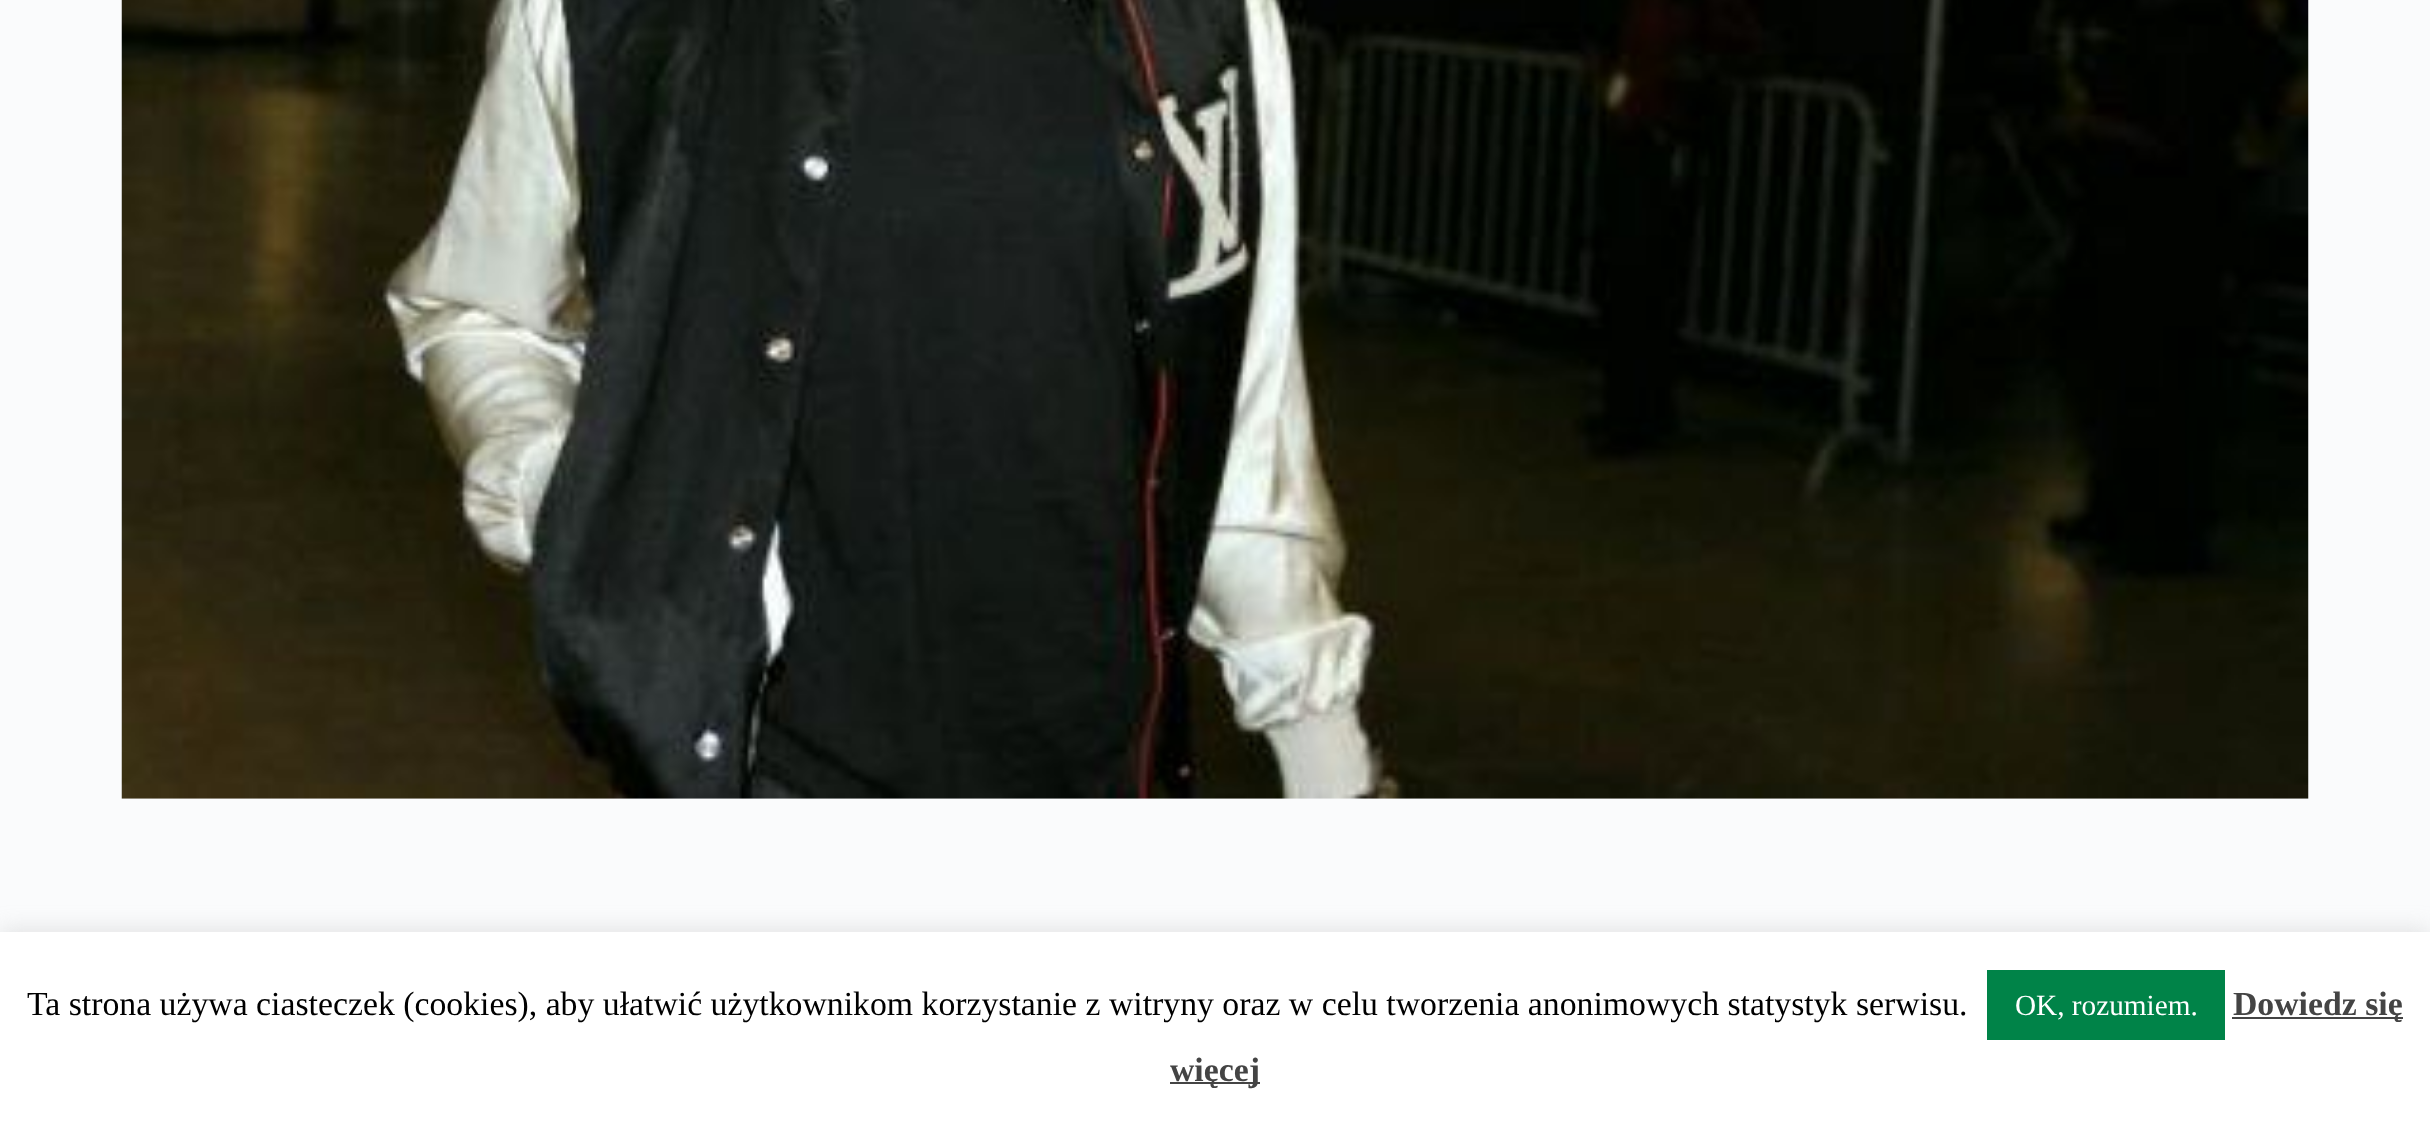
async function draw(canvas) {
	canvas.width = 2430;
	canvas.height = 1125;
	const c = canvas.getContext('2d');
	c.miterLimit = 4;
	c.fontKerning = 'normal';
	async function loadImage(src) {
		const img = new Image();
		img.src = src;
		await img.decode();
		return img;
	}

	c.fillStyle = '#fafbfc';
	c.fillRect(0, 0, 2430, 1125);
	c.drawImage(await loadImage('img1.png'), 121, 0, 2188, 799);
	c.fillStyle = '#acabab4d';
	c.filter = 'blur(11px)';
	c.beginPath();
	c.rect(0, 929, 2430, 194);
	c.fill();
	c.filter = 'none';
	c.fillStyle = '#fff';
	c.fillRect(0, 932, 2430, 193);
	c.font = '33.75px Liberation Serif';
	c.fillStyle = '#000';
	c.fillText('Ta strona używa ciasteczek (cookies), aby ułatwić użytkownikom korzystanie z witryny oraz w celu tworzenia anonimowych statystyk serwisu.', 27, 1015);
	c.fillStyle = '#008348';
	c.fillRect(1987, 970, 238, 70);
	c.font = '29.25px Liberation Serif';
	c.fillStyle = '#fff';
	c.fillText('OK, rozumiem.', 2015, 1015);
	c.fillStyle = '#444';
	c.fillRect(2232, 1017, 171, 2);
	c.font = 'bold 33.75px Liberation Serif';
	c.fillText('Dowiedz się', 2233, 1015);
	c.fillRect(1170, 1082, 90, 2);
	c.fillText('więcej', 1170, 1081);
}

draw(document.querySelector('canvas'));
